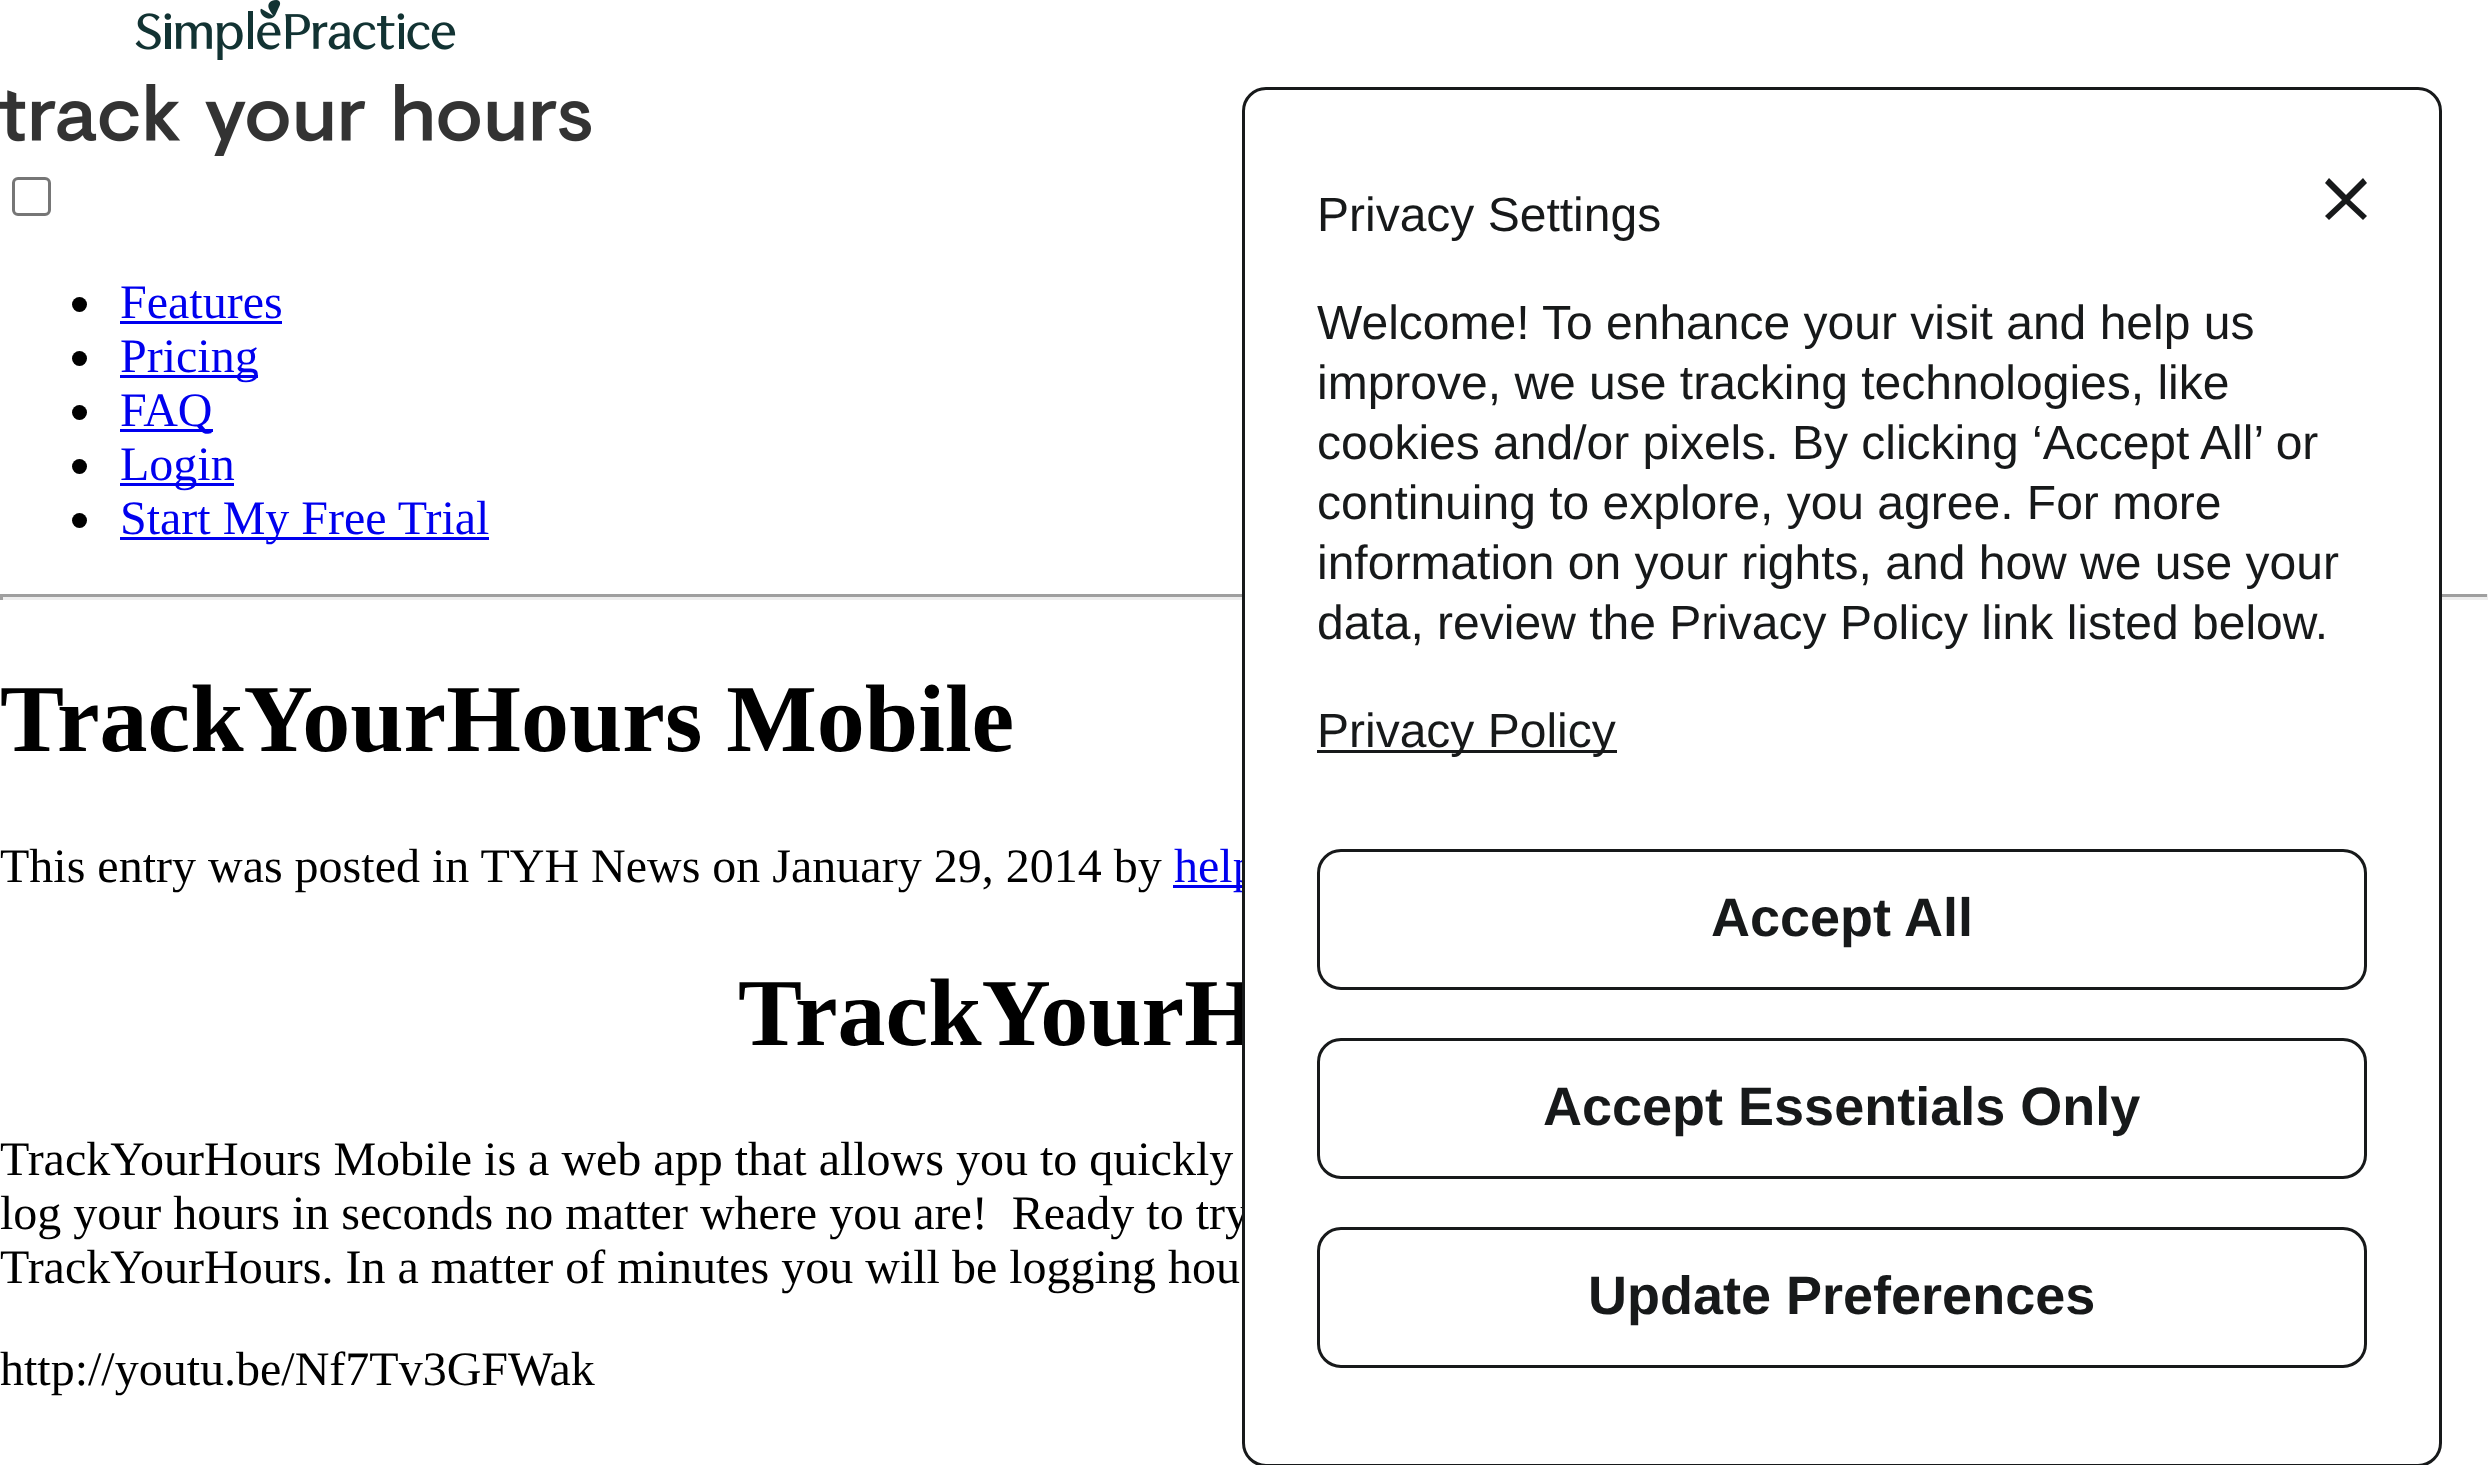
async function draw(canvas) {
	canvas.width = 2488;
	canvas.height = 1465;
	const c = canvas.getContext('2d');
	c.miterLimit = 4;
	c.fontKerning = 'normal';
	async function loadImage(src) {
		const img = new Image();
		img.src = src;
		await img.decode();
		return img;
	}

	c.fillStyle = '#fff';
	c.fillRect(0, 0, 2488, 1465);
	c.drawImage(await loadImage('img1.png'), 0, 0, 591, 156);
	c.beginPath();
	c.roundRect(13.5, 178.5, 36, 36, 4.5);
	c.strokeStyle = '#767676';
	c.lineWidth = 3;
	c.stroke();
	c.fillStyle = '#000';
	c.beginPath();
	c.arc(79.5, 304.5, 7.5, 0, 2 * Math.PI);
	c.fill();
	c.font = '48px Liberation Serif';
	c.fillStyle = '#00e';
	c.fillText('Features', 120, 318);
	c.fillRect(120, 321, 162, 3);
	c.fillStyle = '#000';
	c.beginPath();
	c.arc(79.5, 358.5, 7.5, 0, 2 * Math.PI);
	c.fill();
	c.fillStyle = '#00e';
	c.fillRect(120, 375, 138, 3);
	c.fillText('Pricing', 120, 372);
	c.fillStyle = '#000';
	c.beginPath();
	c.arc(79.5, 412.5, 7.5, 0, 2 * Math.PI);
	c.fill();
	c.fillStyle = '#00e';
	c.fillRect(120, 429, 93, 3);
	c.fillText('FAQ', 120, 426);
	c.fillStyle = '#000';
	c.beginPath();
	c.arc(79.5, 466.5, 7.5, 0, 2 * Math.PI);
	c.fill();
	c.fillStyle = '#00e';
	c.fillRect(120, 483, 114, 3);
	c.fillText('Login', 120, 480);
	c.fillStyle = '#000';
	c.beginPath();
	c.arc(79.5, 520.5, 7.5, 0, 2 * Math.PI);
	c.fill();
	c.fillStyle = '#00e';
	c.fillRect(120, 537, 369, 3);
	c.fillText('Start My Free Trial', 120, 534);
	for (const [x, y, w, h, color] of [
		[0, 594, 2488, 3, '#9f9f9f'],
		[2487, 594, 1, 6, '#eee'],
		[0, 597, 2488, 3, '#eee'],
		[1173, 885, 69, 3, '#00e'],
	]) {
		c.fillStyle = color;
		c.fillRect(x, y, w, h);
	}
	c.fillText('help', 1174, 882);
	c.font = 'bold 96px Liberation Serif';
	c.fillStyle = '#000';
	c.fillText('TrackYourH', 738, 1045);
	c.font = '48px Liberation Serif';
	c.fillText('log your hours in seconds no matter where you are!  Ready to try', 0, 1229);
	c.fillStyle = '#fff';
	c.beginPath();
	c.roundRect(1243.5, 88.5, 1197, 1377, 22.5);
	c.fill();
	c.strokeStyle = '#17191a';
	c.stroke();
	c.font = '48px Liberation Sans';
	c.fillStyle = '#17191a';
	c.fillText('Privacy Settings', 1317, 231);
	c.beginPath();
	c.moveTo(2367, 183);
	c.lineTo(2363, 178);
	c.lineTo(2346, 195);
	c.lineTo(2329, 178);
	c.lineTo(2325, 183);
	c.lineTo(2342, 200);
	c.lineTo(2325, 216);
	c.lineTo(2329, 220);
	c.lineTo(2346, 204);
	c.lineTo(2363, 220);
	c.lineTo(2367, 216);
	c.lineTo(2350, 200);
	c.closePath();
	c.fill();
	for (const [text, x, y] of [
		['Welcome! To enhance your visit and help us', 1317, 339],
		['improve, we use tracking technologies, like', 1317, 399],
		['cookies and/or pixels. By clicking ‘Accept All’ or', 1317, 459],
		['continuing to explore, you agree. For more', 1317, 519],
		['information on your rights, and how we use your', 1317, 579],
		['data, review the Privacy Policy link listed below.', 1317, 639],
	]) {
		c.fillText(text, x, y);
	}
	c.fillRect(1317, 750, 300, 3);
	c.fillText('Privacy Policy', 1317, 747);
	c.beginPath();
	c.roundRect(1318.5, 850.5, 1047, 138, 22.5);
	c.stroke();
	c.font = 'bold 54px Liberation Sans';
	c.fillText('Accept All', 1711, 936);
	c.beginPath();
	c.roundRect(1318.5, 1039.5, 1047, 138, 22.5);
	c.stroke();
	c.fillText('Accept Essentials Only', 1543, 1125);
	c.beginPath();
	c.roundRect(1318.5, 1228.5, 1047, 138, 22.5);
	c.stroke();
	c.fillText('Update Preferences', 1588, 1314);
	c.fillStyle = '#9f9f9f';
	c.fillRect(0, 594, 3, 6);
	c.font = 'bold 96px Liberation Serif';
	c.fillStyle = '#000';
	c.fillText('TrackYourHours Mobile', 0, 751);
	c.font = '48px Liberation Serif';
	for (const [text, x, y] of [
		['This entry was posted in TYH News on January 29, 2014 by', 0, 882],
		['TrackYourHours Mobile is a web app that allows you to quickly', 0, 1175],
		['TrackYourHours. In a matter of minutes you will be logging hou', 0, 1283],
		['http://youtu.be/Nf7Tv3GFWak', 0, 1385],
	]) {
		c.fillText(text, x, y);
	}
}

draw(document.querySelector('canvas'));
